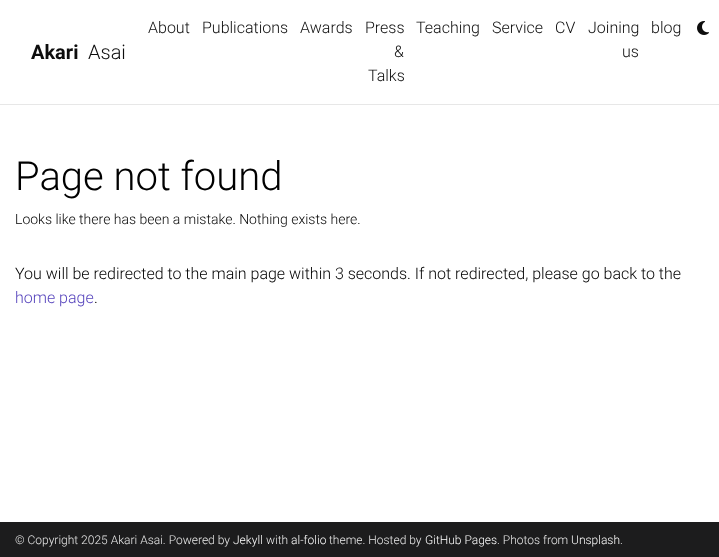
async function draw(canvas) {
	canvas.width = 719;
	canvas.height = 557;
	const c = canvas.getContext('2d');
	c.miterLimit = 4;
	c.fontKerning = 'normal';
	async function loadImage(src) {
		const img = new Image();
		img.src = src;
		await img.decode();
		return img;
	}

	c.fillStyle = '#fff';
	c.fillRect(0, 0, 719, 557);
	c.fillStyle = '#e7e7e7';
	c.fillRect(0, 104, 719, 1);
	c.font = 'bold 20px Roboto';
	c.fillStyle = '#0d0d0d';
	c.fillText('Akari', 31, 59);
	c.font = '300 20px Roboto';
	c.fillText('Asai', 88, 59);
	c.font = '300 16px Roboto';
	for (const [text, x, y] of [
		['About', 148, 33],
		['Publications', 202, 33],
		['Awards', 300, 33],
		['Press', 365, 33],
		['&', 394, 57],
		['Talks', 368, 81],
		['Teaching', 416, 33],
		['Service', 492, 33],
		['CV', 555, 33],
		['Joining', 588, 33],
		['us', 622, 57],
		['blog', 651, 33],
	]) {
		c.fillText(text, x, y);
	}
	c.drawImage(await loadImage('img1.png'), 697, 21, 12, 14);
	c.font = '300 40px Roboto';
	c.fillStyle = '#000';
	c.fillText('Page not found', 15, 190);
	c.font = '300 14px Roboto';
	c.fillText('Looks like there has been a mistake. Nothing exists here.', 15, 224);
	c.font = '300 16px Roboto';
	c.fillText('You will be redirected to the main page within 3 seconds. If not redirected, please go back to the', 15, 279);
	c.fillStyle = '#5644bc';
	c.fillText('home page', 15, 303);
	c.fillStyle = '#000';
	c.fillText('.', 94, 303);
	c.fillStyle = '#1c1c1d';
	c.fillRect(0, 522, 719, 35);
	c.font = '300 12px Roboto';
	c.fillStyle = '#e8e8e8';
	c.fillText('© Copyright 2025 Akari Asai. Powered by', 15, 544);
	c.fillStyle = '#fff';
	c.fillText('Jekyll', 233, 544);
	c.fillStyle = '#e8e8e8';
	c.fillText('with', 266, 544);
	c.fillStyle = '#fff';
	c.fillText('al-folio', 291, 544);
	c.fillStyle = '#e8e8e8';
	c.fillText('theme. Hosted by', 329, 544);
	c.fillStyle = '#fff';
	c.fillText('GitHub Pages', 425, 544);
	c.fillStyle = '#e8e8e8';
	c.fillText('. Photos from', 497, 544);
	c.fillStyle = '#fff';
	c.fillText('Unsplash', 571, 544);
	c.fillStyle = '#e8e8e8';
	c.fillText('.', 620, 544);
}

draw(document.querySelector('canvas'));
